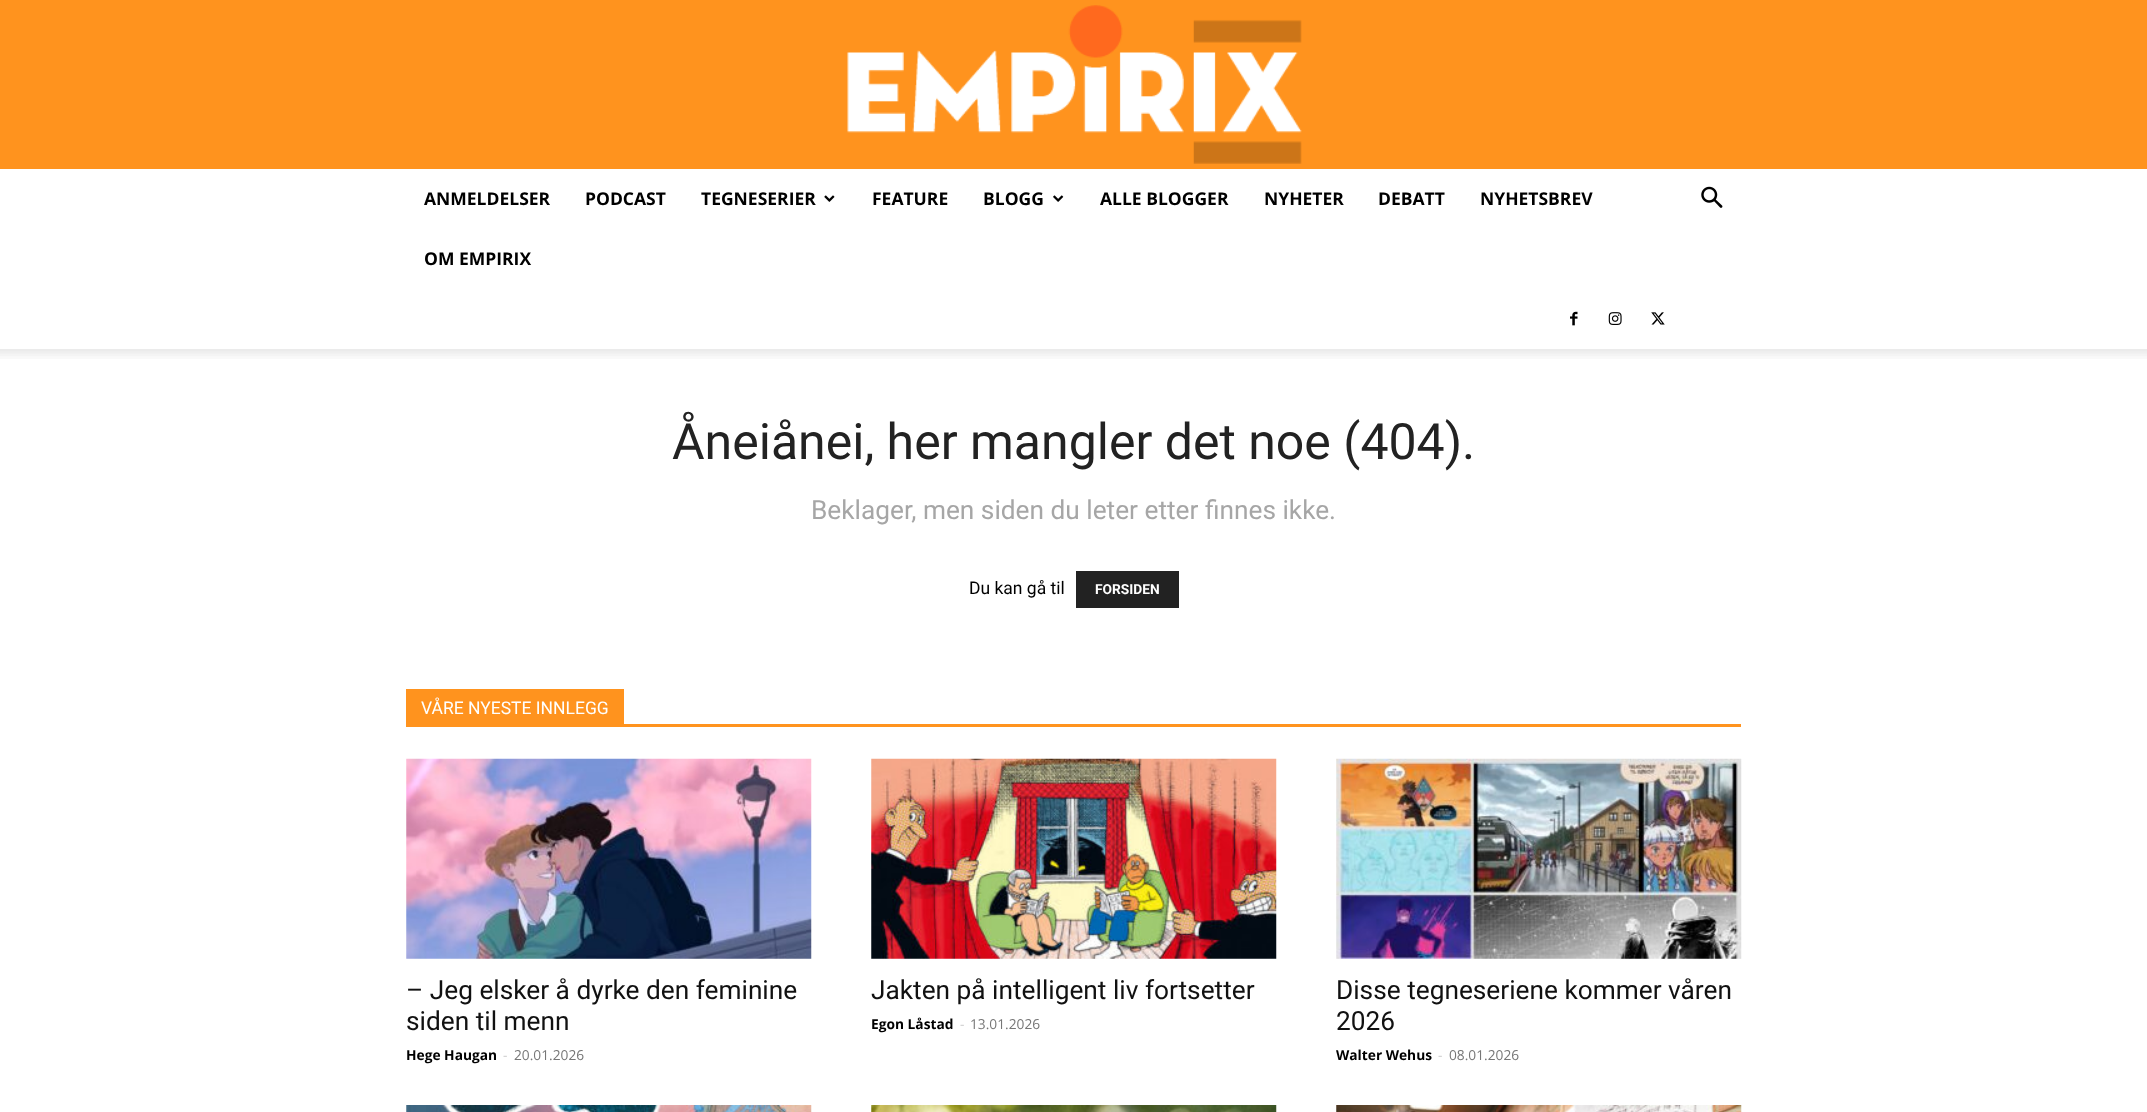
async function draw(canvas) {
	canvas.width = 2147;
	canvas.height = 1112;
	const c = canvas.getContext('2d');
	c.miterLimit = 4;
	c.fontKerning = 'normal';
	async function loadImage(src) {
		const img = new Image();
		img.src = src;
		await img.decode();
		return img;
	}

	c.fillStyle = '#fff';
	c.fillRect(0, 0, 2147, 1112);
	c.fillStyle = '#ff931e';
	c.fillRect(0, 0, 2147, 169);
	c.drawImage(await loadImage('img1.png'), 847, 5, 455, 159);
	c.font = 'bold 17.5px Open Sans';
	c.fillStyle = '#000';
	for (const [text, x, y] of [
		['ANMELDELSER', 424, 205],
		['PODCAST', 585, 205],
		['TEGNESERIER', 701, 205],
	]) {
		c.fillText(text, x, y);
	}
	c.drawImage(await loadImage('img2.png'), 824, 195, 11, 7);
	c.fillText('FEATURE', 872, 205);
	c.fillText('BLOGG', 983, 205);
	c.drawImage(await loadImage('img3.png'), 1053, 195, 11, 7);
	for (const [text, x, y] of [
		['ALLE BLOGGER', 1100, 205],
		['NYHETER', 1264, 205],
		['DEBATT', 1378, 205],
		['NYHETSBREV', 1480, 205],
		['OM EMPIRIX', 424, 265],
	]) {
		c.fillText(text, x, y);
	}
	c.drawImage(await loadImage('img4.png'), 1701, 186, 22, 22);
	c.drawImage(await loadImage('img5.png'), 1570, 311, 8, 15);
	c.drawImage(await loadImage('img6.png'), 1608, 312, 14, 13);
	c.drawImage(await loadImage('img7.png'), 1651, 312, 14, 13);
	c.drawImage(await loadImage('img8.png'), 0, 349, 2147, 10);
	c.font = '50px Roboto';
	c.fillStyle = '#222';
	c.fillText('Åneiånei, her mangler det noe (404).', 672, 459);
	c.font = '26.25px Roboto';
	c.fillStyle = '#a6a6a6';
	c.fillText('Beklager, men siden du leter etter finnes ikke.', 811, 519);
	c.font = '17.5px Roboto';
	c.fillStyle = '#000';
	c.fillText('Du kan gå til', 969, 594);
	c.fillStyle = '#222';
	c.fillRect(1076, 571, 103, 37);
	c.font = 'bold 13.75px Roboto';
	c.fillStyle = '#fff';
	c.fillText('FORSIDEN', 1095, 594);
	c.fillStyle = '#ff931e';
	c.fillRect(406, 724, 1335, 3);
	c.fillRect(406, 689, 218, 35);
	c.font = '17.5px Roboto';
	c.fillStyle = '#fff';
	c.fillText('VÅRE NYESTE INNLEGG', 421, 714);
	c.drawImage(await loadImage('img9.png'), 406, 758, 406, 201);
	c.font = '26.25px Roboto';
	c.fillStyle = '#111';
	c.fillText('– Jeg elsker å dyrke den feminine', 406, 999);
	c.fillText('siden til menn', 406, 1030);
	c.font = 'bold 13.75px Open Sans';
	c.fillStyle = '#000';
	c.fillText('Hege Haugan', 406, 1060);
	c.font = '13.75px Open Sans';
	c.fillStyle = '#ccc';
	c.fillText('-', 503, 1060);
	c.fillStyle = '#767676';
	c.fillText('20.01.2026', 514, 1060);
	c.drawImage(await loadImage('img10.png'), 871, 758, 406, 201);
	c.font = '26.25px Roboto';
	c.fillStyle = '#111';
	c.fillText('Jakten på intelligent liv fortsetter', 871, 999);
	c.font = 'bold 13.75px Open Sans';
	c.fillStyle = '#000';
	c.fillText('Egon Låstad', 871, 1029);
	c.font = '13.75px Open Sans';
	c.fillStyle = '#ccc';
	c.fillText('-', 960, 1029);
	c.fillStyle = '#767676';
	c.fillText('13.01.2026', 970, 1029);
	c.drawImage(await loadImage('img11.png'), 1336, 758, 406, 201);
	c.font = '26.25px Roboto';
	c.fillStyle = '#111';
	c.fillText('Disse tegneseriene kommer våren', 1336, 999);
	c.fillText('2026', 1336, 1030);
	c.font = 'bold 13.75px Open Sans';
	c.fillStyle = '#000';
	c.fillText('Walter Wehus', 1336, 1060);
	c.font = '13.75px Open Sans';
	c.fillStyle = '#ccc';
	c.fillText('-', 1438, 1060);
	c.fillStyle = '#767676';
	c.fillText('08.01.2026', 1449, 1060);
	c.drawImage(await loadImage('img12.png'), 406, 1105, 406, 7);
	c.drawImage(await loadImage('img13.png'), 871, 1105, 406, 7);
	c.drawImage(await loadImage('img14.png'), 1336, 1105, 406, 7);
}

draw(document.querySelector('canvas'));
